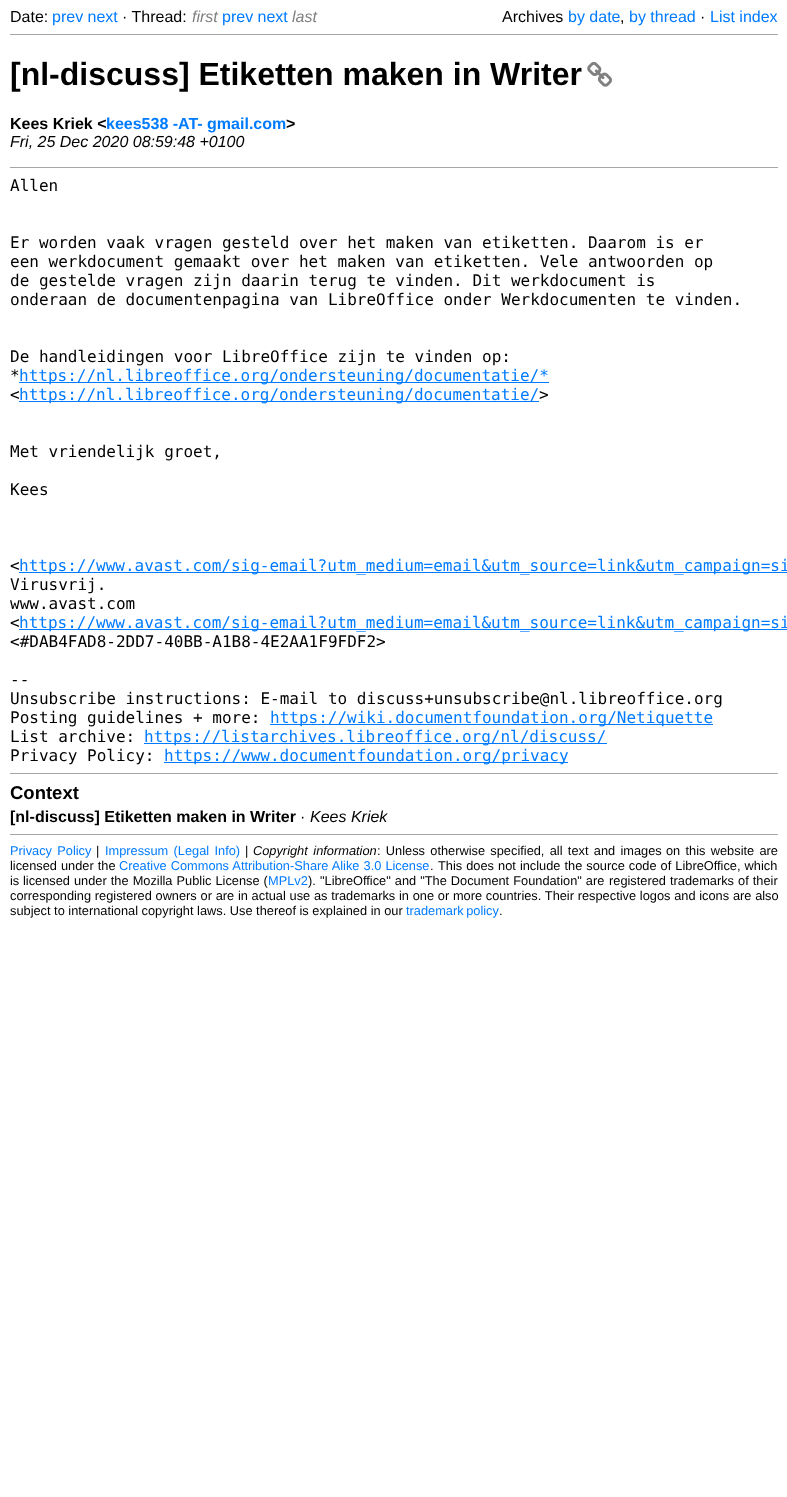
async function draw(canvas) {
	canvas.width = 787;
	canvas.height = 1497;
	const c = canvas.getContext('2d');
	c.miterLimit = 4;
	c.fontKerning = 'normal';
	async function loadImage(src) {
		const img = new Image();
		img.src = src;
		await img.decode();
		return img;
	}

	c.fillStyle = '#fff';
	c.fillRect(0, 0, 787, 1497);
	c.font = '16px Liberation Sans';
	c.fillStyle = '#000';
	c.fillText('Date:', 10, 22);
	c.fillStyle = '#007bff';
	c.fillText('prev next', 52, 22);
	c.fillStyle = '#000';
	c.fillText('· Thread:', 122, 22);
	c.font = 'italic 16px Liberation Sans';
	c.fillStyle = '#808080';
	c.fillText('first', 192, 22);
	c.font = '16px Liberation Sans';
	c.fillStyle = '#007bff';
	c.fillText('prev next', 222, 22);
	c.font = 'italic 16px Liberation Sans';
	c.fillStyle = '#808080';
	c.fillText('last', 292, 22);
	c.font = '16px Liberation Sans';
	c.fillStyle = '#000';
	c.fillText('Archives', 502, 22);
	c.fillStyle = '#007bff';
	c.fillText('by date', 568, 22);
	c.fillText('by thread', 629, 22);
	c.fillStyle = '#000';
	c.fillText('·', 700, 22);
	c.fillStyle = '#007bff';
	c.fillText('List index', 710, 22);
	c.fillStyle = '#000';
	c.fillText(',', 620, 22);
	c.fillStyle = '#a6a6a6';
	c.fillRect(10, 34, 768, 1);
	c.font = 'bold 32px Liberation Sans';
	c.fillStyle = '#000';
	c.fillText('[nl-discuss] Etiketten maken in Writer', 10, 85);
	c.drawImage(await loadImage('img1.png'), 587, 61, 25, 26);
	c.font = 'bold 16px Liberation Sans';
	c.fillText('Kees Kriek <', 10, 129);
	c.fillStyle = '#007bff';
	c.fillText('kees538 -AT- gmail.com', 106, 129);
	c.fillStyle = '#000';
	c.fillText('>', 286, 129);
	c.font = 'italic 16px Liberation Sans';
	c.fillText('Fri, 25 Dec 2020 08:59:48 +0100', 10, 147);
	c.fillStyle = '#a6a6a6';
	c.fillRect(10, 167, 768, 1);
	c.font = '16px DejaVu Sans Mono';
	c.fillStyle = '#000';
	for (const [text, x, y] of [
		['Allen', 10, 191],
		['Er worden vaak vragen gesteld over het maken van etiketten. Daarom is er', 10, 248],
		['een werkdocument gemaakt over het maken van etiketten. Vele antwoorden op', 10, 267],
		['de gestelde vragen zijn daarin terug te vinden. Dit werkdocument is', 10, 286],
		['onderaan de documentenpagina van LibreOffice onder Werkdocumenten te vinden.', 10, 305],
		['De handleidingen voor LibreOffice zijn te vinden op:', 10, 362],
		['*', 10, 381],
	]) {
		c.fillText(text, x, y);
	}
	c.fillStyle = '#007bff';
	c.fillRect(19, 382, 530, 1);
	c.fillText('https://nl.libreoffice.org/ondersteuning/documentatie/*', 19, 381);
	c.fillStyle = '#000';
	c.fillText('<', 10, 400);
	c.fillStyle = '#007bff';
	c.fillRect(19, 401, 520, 1);
	c.fillText('https://nl.libreoffice.org/ondersteuning/documentatie/', 19, 400);
	c.fillStyle = '#000';
	for (const [text, x, y] of [
		['>', 539, 400],
		['Met vriendelijk groet,', 10, 457],
		['Kees', 10, 495],
		['<', 10, 571],
	]) {
		c.fillText(text, x, y);
	}
	c.fillStyle = '#007bff';
	c.fillRect(19, 572, 768, 1);
	c.fillText('https://www.avast.com/sig-email?utm_medium=email&utm_source=link&utm_campaign=si', 19, 571);
	c.fillStyle = '#000';
	for (const [text, x, y] of [
		['Virusvrij.', 10, 590],
		['www.avast.com', 10, 609],
		['<', 10, 628],
	]) {
		c.fillText(text, x, y);
	}
	c.fillStyle = '#007bff';
	c.fillRect(19, 629, 768, 1);
	c.fillText('https://www.avast.com/sig-email?utm_medium=email&utm_source=link&utm_campaign=si', 19, 628);
	c.fillStyle = '#000';
	for (const [text, x, y] of [
		['<#DAB4FAD8-2DD7-40BB-A1B8-4E2AA1F9FDF2>', 10, 647],
		['--', 10, 685],
		['Unsubscribe instructions: E-mail to discuss+unsubscribe@nl.libreoffice.org', 10, 704],
		['Posting guidelines + more:', 10, 723],
	]) {
		c.fillText(text, x, y);
	}
	c.fillStyle = '#007bff';
	c.fillRect(270, 724, 443, 1);
	c.fillText('https://wiki.documentfoundation.org/Netiquette', 270, 723);
	c.fillStyle = '#000';
	c.fillText('List archive:', 10, 742);
	c.fillStyle = '#007bff';
	c.fillRect(144, 743, 463, 1);
	c.fillText('https://listarchives.libreoffice.org/nl/discuss/', 144, 742);
	c.fillStyle = '#000';
	c.fillText('Privacy Policy:', 10, 761);
	c.fillStyle = '#007bff';
	c.fillRect(164, 762, 404, 1);
	c.fillText('https://www.documentfoundation.org/privacy', 164, 761);
	c.fillStyle = '#a6a6a6';
	c.fillRect(10, 773, 768, 1);
	c.font = 'bold 18.5px Liberation Sans';
	c.fillStyle = '#000';
	c.fillText('Context', 10, 799);
	c.font = 'bold 16px Liberation Sans';
	c.fillText('[nl-discuss] Etiketten maken in Writer', 10, 822);
	c.font = '16px Liberation Sans';
	c.fillText('·', 300, 822);
	c.font = 'italic 16px Liberation Sans';
	c.fillText('Kees Kriek', 310, 822);
	c.fillStyle = '#a6a6a6';
	c.fillRect(10, 834, 768, 1);
	c.wordSpacing = '1.75px';
	c.font = '12.8px Liberation Sans';
	c.fillStyle = '#007bff';
	c.fillText('Privacy Policy', 10, 855);
	c.wordSpacing = '0px';
	c.fillStyle = '#000';
	c.fillText('|', 96, 855);
	c.wordSpacing = '1.75px';
	c.fillStyle = '#007bff';
	c.fillText('Impressum (Legal Info)', 105, 855);
	c.wordSpacing = '0px';
	c.fillStyle = '#000';
	c.fillText('|', 245, 855);
	c.wordSpacing = '2px';
	c.font = 'italic 12.8px Liberation Sans';
	c.fillText('Copyright information', 253, 855);
	c.wordSpacing = '1.75px';
	c.font = '12.8px Liberation Sans';
	c.fillText(': Unless otherwise specified, all text and images', 377, 855);
	c.fillText('on this website are', 666, 855);
	c.wordSpacing = '0.5px';
	c.fillText('licensed under the', 10, 870);
	c.fillStyle = '#007bff';
	c.fillText('Creative Commons Attribution-Share Alike 3.0 License', 119, 870);
	c.wordSpacing = '0px';
	c.fillStyle = '#000';
	c.fillText('.', 430, 870);
	c.wordSpacing = '0.5px';
	c.fillText('This does not include the source code of LibreOffice, which', 438, 870);
	c.wordSpacing = '0px';
	c.fillText('is', 10, 885);
	c.wordSpacing = '0.5px';
	c.fillText('licensed under the Mozilla Public License (', 23, 885);
	c.wordSpacing = '0px';
	c.fillStyle = '#007bff';
	c.fillText('MPLv2', 268, 885);
	c.fillStyle = '#000';
	c.fillText(').', 308, 885);
	c.wordSpacing = '0.5px';
	c.fillText('"LibreOffice" and "The Document Foundation" are', 320, 885);
	c.fillText('registered trademarks of their', 609, 885);
	c.wordSpacing = '0.2px';
	c.fillText('corresponding registered owners or are in actual use as trademarks in one or more countries. Their respective logos and icons are also', 10, 900);
	c.wordSpacing = '0px';
	c.fillText('subject to international copyright laws. Use thereof is explained in our', 10, 915);
	c.wordSpacing = '-1px';
	c.fillStyle = '#007bff';
	c.fillText('trademark policy', 406, 915);
	c.wordSpacing = '0px';
	c.fillStyle = '#000';
	c.fillText('.', 499, 915);
}

draw(document.querySelector('canvas'));
